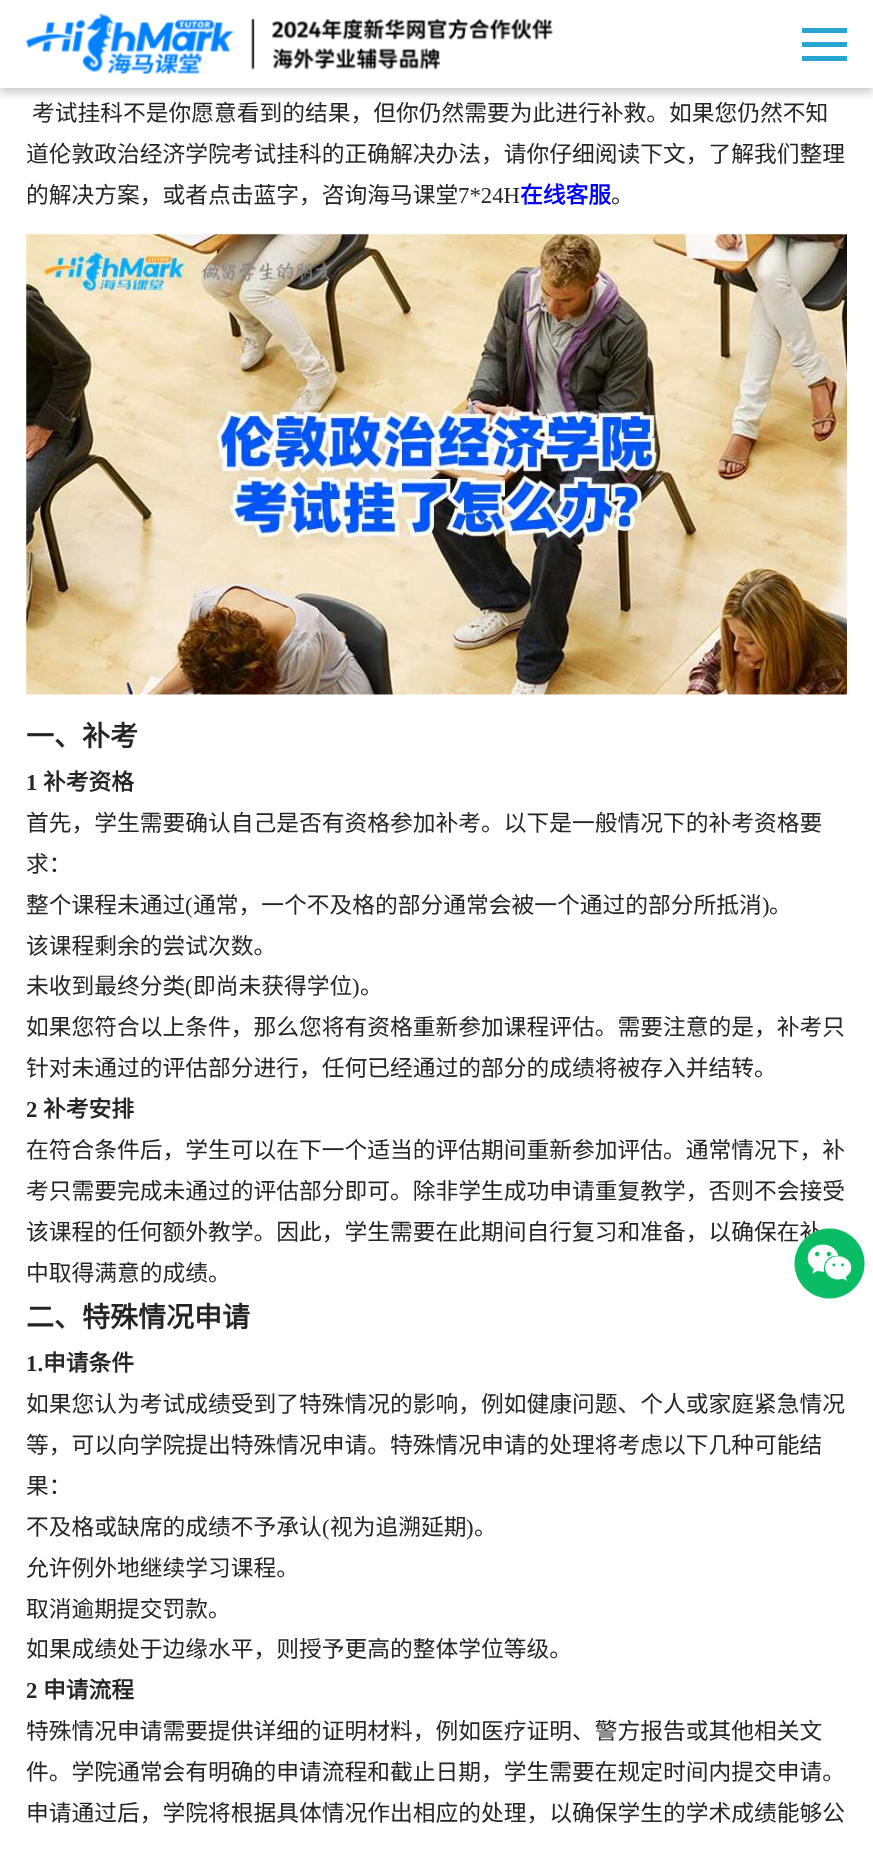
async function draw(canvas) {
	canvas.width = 873;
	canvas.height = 1854;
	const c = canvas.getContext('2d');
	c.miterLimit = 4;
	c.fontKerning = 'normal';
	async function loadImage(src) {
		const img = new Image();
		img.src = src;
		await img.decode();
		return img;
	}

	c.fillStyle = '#fff';
	c.fillRect(0, 0, 873, 1854);
	c.fillStyle = '#00000033';
	c.filter = 'blur(4.5px)';
	c.beginPath();
	c.rect(0, 5, 873, 88);
	c.fill();
	c.filter = 'none';
	c.fillStyle = '#fff';
	c.fillRect(0, 0, 873, 88);
	c.drawImage(await loadImage('img1.png'), 25, 13, 528, 61);
	for (const [x, y, w, h, color] of [
		[802, 42, 45, 5, '#29a5d1'],
		[802, 28, 45, 5, '#29a5d1'],
		[802, 56, 45, 5, '#29a5d1'],
	]) {
		c.fillStyle = color;
		c.fillRect(x, y, w, h);
	}
	c.font = '22.75px Noto Sans CJK SC';
	c.fillStyle = '#252526';
	for (const [text, x, y] of [
		['考试挂科不是你愿意看到的结果，但你仍然需要为此进行补救。如果您仍然不知', 32, 121],
		['道伦敦政治经济学院考试挂科的正确解决办法，请你仔细阅读下文，了解我们整理', 26, 162],
		['的解决方案，或者点击蓝字，咨询海马课堂', 26, 203],
	]) {
		c.fillText(text, x, y);
	}
	c.font = '22.75px Liberation Serif';
	c.fillText('7*24H', 458, 203);
	c.font = 'bold 22.75px Noto Sans CJK SC';
	c.fillStyle = '#00f';
	c.fillText('在线客服', 520, 203);
	c.font = '22.75px Noto Sans CJK SC';
	c.fillStyle = '#252526';
	c.fillText('。', 611, 203);
	c.drawImage(await loadImage('img2.png'), 26, 234, 821, 461);
	c.font = 'bold 28px Noto Sans CJK SC';
	c.fillText('一、补考', 26, 746);
	c.font = 'bold 22.75px Liberation Serif';
	c.fillText('1', 26, 790);
	c.font = 'bold 22.75px Noto Sans CJK SC';
	c.fillText('补考资格', 43, 790);
	c.font = '22.75px Noto Sans CJK SC';
	for (const [text, x, y] of [
		['首先，学生需要确认自己是否有资格参加补考。以下是一般情况下的补考资格要', 26, 831],
		['求：', 26, 872],
		['整个课程未通过', 26, 913],
	]) {
		c.fillText(text, x, y);
	}
	c.font = '22.75px Liberation Serif';
	c.fillText('(', 185, 913);
	c.font = '22.75px Noto Sans CJK SC';
	c.fillText('通常，一个不及格的部分通常会被一个通过的部分所抵消', 193, 913);
	c.font = '22.75px Liberation Serif';
	c.fillText(')', 762, 913);
	c.font = '22.75px Noto Sans CJK SC';
	for (const [text, x, y] of [
		['。', 769, 913],
		['该课程剩余的尝试次数。', 26, 954],
		['未收到最终分类', 26, 994],
	]) {
		c.fillText(text, x, y);
	}
	c.font = '22.75px Liberation Serif';
	c.fillText('(', 185, 994);
	c.font = '22.75px Noto Sans CJK SC';
	c.fillText('即尚未获得学位', 193, 994);
	c.font = '22.75px Liberation Serif';
	c.fillText(')', 352, 994);
	c.font = '22.75px Noto Sans CJK SC';
	for (const [text, x, y] of [
		['。', 360, 994],
		['如果您符合以上条件，那么您将有资格重新参加课程评估。需要注意的是，补考只', 26, 1035],
		['针对未通过的评估部分进行，任何已经通过的部分的成绩将被存入并结转。', 26, 1076],
	]) {
		c.fillText(text, x, y);
	}
	c.font = 'bold 22.75px Liberation Serif';
	c.fillText('2', 26, 1117);
	c.font = 'bold 22.75px Noto Sans CJK SC';
	c.fillText('补考安排', 43, 1117);
	c.font = '22.75px Noto Sans CJK SC';
	for (const [text, x, y] of [
		['在符合条件后，学生可以在下一个适当的评估期间重新参加评估。通常情况下，补', 26, 1158],
		['考只需要完成未通过的评估部分即可。除非学生成功申请重复教学，否则不会接受', 26, 1199],
		['该课程的任何额外教学。因此，学生需要在此期间自行复习和准备，以确保在补', 26, 1240],
		['中取得满意的成绩。', 26, 1281],
	]) {
		c.fillText(text, x, y);
	}
	c.font = 'bold 28px Noto Sans CJK SC';
	c.fillText('二、特殊情况申请', 26, 1327);
	c.font = 'bold 22.75px Liberation Serif';
	c.fillText('1.', 26, 1371);
	c.font = 'bold 22.75px Noto Sans CJK SC';
	c.fillText('申请条件', 43, 1371);
	c.font = '22.75px Noto Sans CJK SC';
	for (const [text, x, y] of [
		['如果您认为考试成绩受到了特殊情况的影响，例如健康问题、个人或家庭紧急情况', 26, 1412],
		['等，可以向学院提出特殊情况申请。特殊情况申请的处理将考虑以下几种可能结', 26, 1453],
		['果：', 26, 1494],
		['不及格或缺席的成绩不予承认', 26, 1535],
	]) {
		c.fillText(text, x, y);
	}
	c.font = '22.75px Liberation Serif';
	c.fillText('(', 322, 1535);
	c.font = '22.75px Noto Sans CJK SC';
	c.fillText('视为追溯延期', 330, 1535);
	c.font = '22.75px Liberation Serif';
	c.fillText(')', 466, 1535);
	c.font = '22.75px Noto Sans CJK SC';
	for (const [text, x, y] of [
		['。', 474, 1535],
		['允许例外地继续学习课程。', 26, 1576],
		['取消逾期提交罚款。', 26, 1617],
		['如果成绩处于边缘水平，则授予更高的整体学位等级。', 26, 1657],
	]) {
		c.fillText(text, x, y);
	}
	c.font = 'bold 22.75px Liberation Serif';
	c.fillText('2', 26, 1698);
	c.font = 'bold 22.75px Noto Sans CJK SC';
	c.fillText('申请流程', 43, 1698);
	c.font = '22.75px Noto Sans CJK SC';
	for (const [text, x, y] of [
		['特殊情况申请需要提供详细的证明材料，例如医疗证明、警方报告或其他相关文', 26, 1739],
		['件。学院通常会有明确的申请流程和截止日期，学生需要在规定时间内提交申请。', 26, 1780],
		['申请通过后，学院将根据具体情况作出相应的处理，以确保学生的学术成绩能够公', 26, 1821],
	]) {
		c.fillText(text, x, y);
	}
	c.drawImage(await loadImage('img3.png'), 794, 1228, 71, 71);
}

draw(document.querySelector('canvas'));
